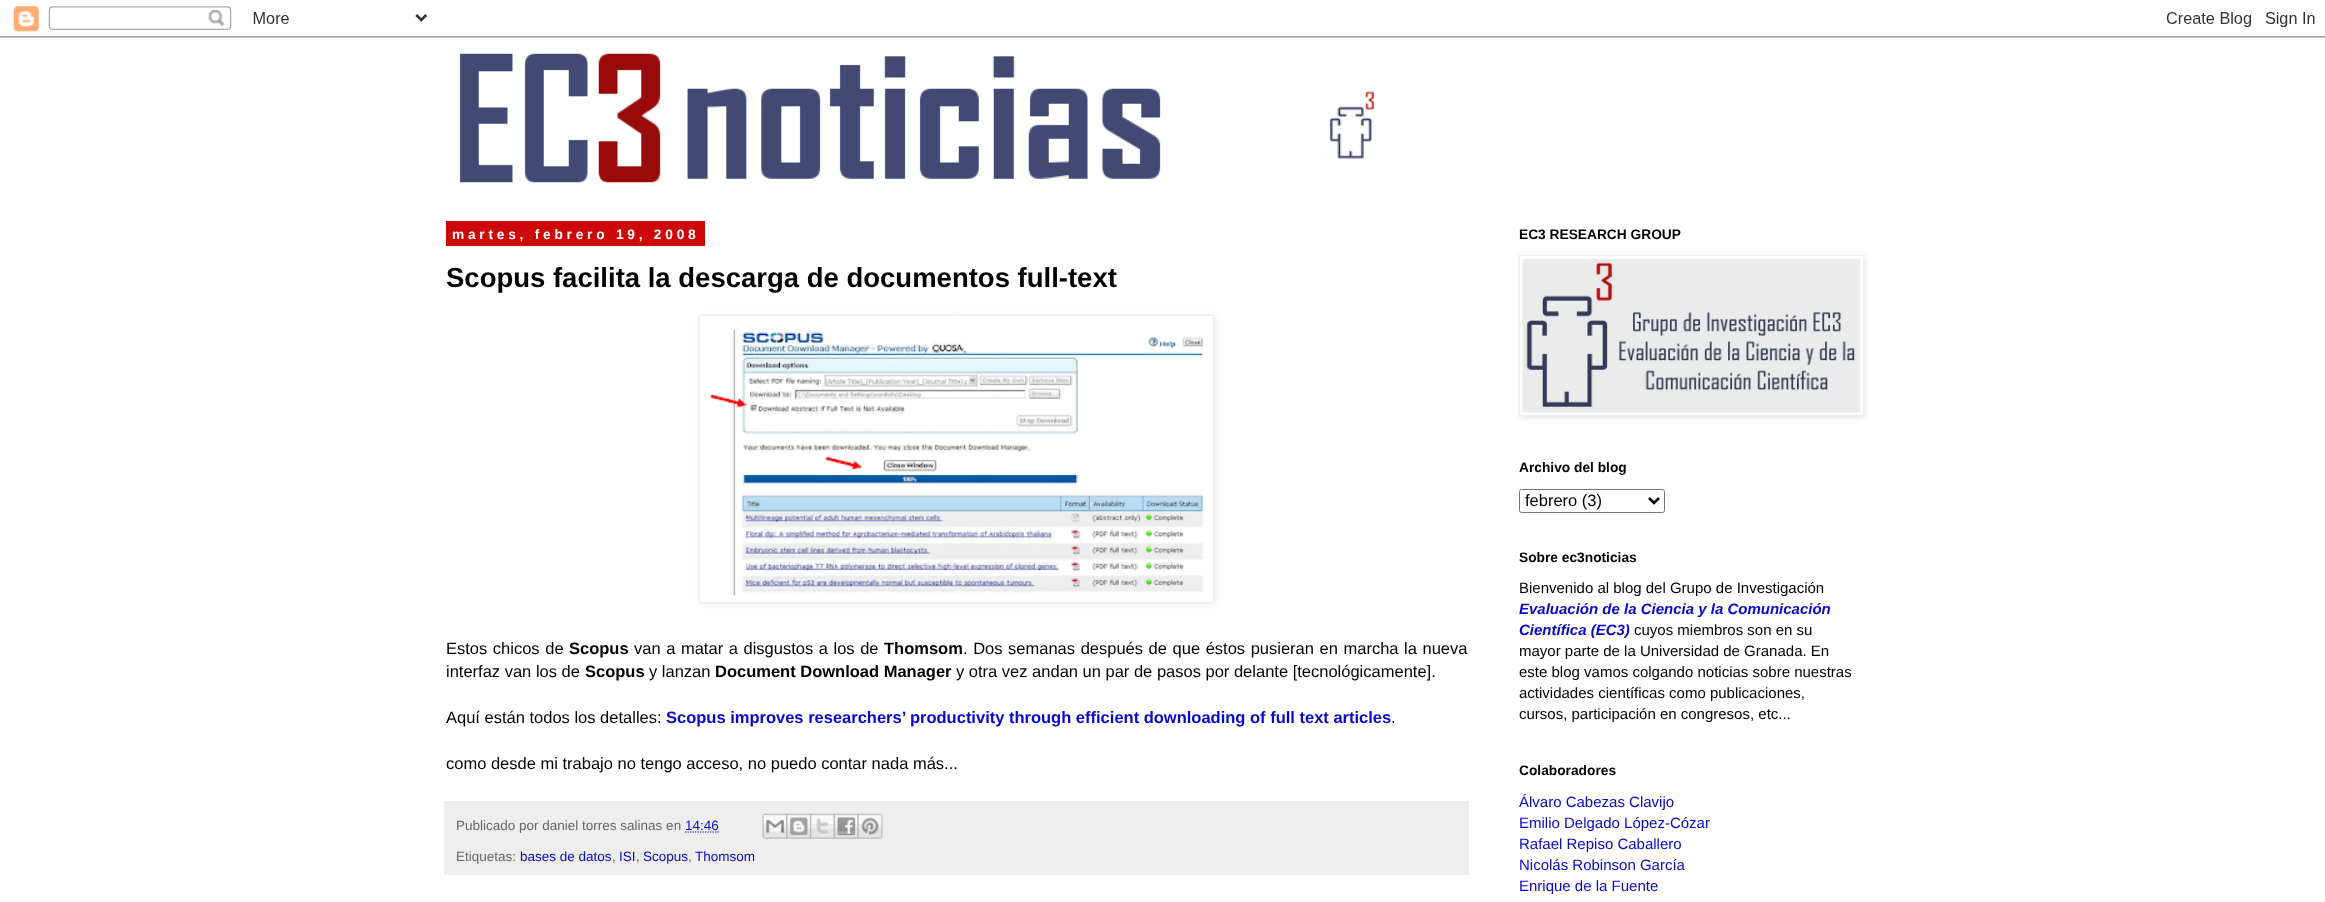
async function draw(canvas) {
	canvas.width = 2325;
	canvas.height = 902;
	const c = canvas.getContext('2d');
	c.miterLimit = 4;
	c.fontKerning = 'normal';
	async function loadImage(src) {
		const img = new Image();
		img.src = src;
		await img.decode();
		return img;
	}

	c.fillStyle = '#fff';
	c.fillRect(0, 0, 2325, 902);
	c.drawImage(await loadImage('img1.png'), 0, 6, 2325, 32);
	c.drawImage(await loadImage('img2.png'), 459, 53, 916, 130);
	c.fillStyle = '#ce0808';
	c.fillRect(446, 221, 259, 25);
	c.letterSpacing = '3.75px';
	c.font = 'bold 13.75px Liberation Sans';
	c.fillStyle = '#fff';
	c.fillText('martes, febrero 19, 2008', 452, 239);
	c.letterSpacing = '0px';
	c.font = 'bold 27.5px Liberation Sans';
	c.fillStyle = '#000';
	c.fillText('Scopus facilita la descarga de documentos full-text', 446, 287);
	c.fillStyle = '#0000001a';
	c.filter = 'blur(3px)';
	c.beginPath();
	c.rect(700, 316, 515, 288);
	c.fill();
	c.filter = 'none';
	c.fillStyle = '#fff';
	c.beginPath();
	c.rect(699.5, 315.5, 514, 287);
	c.fill();
	c.strokeStyle = '#eee';
	c.stroke();
	c.drawImage(await loadImage('img3.png'), 710, 329, 494, 266);
	c.wordSpacing = '1px';
	c.font = '16.5px Liberation Sans';
	c.fillStyle = '#000';
	c.fillText('Estos chicos de', 446, 654);
	c.wordSpacing = '0px';
	c.font = 'bold 16.5px Liberation Sans';
	c.fillText('Scopus', 569, 654);
	c.wordSpacing = '1px';
	c.font = '16.5px Liberation Sans';
	c.fillText('van a matar a disgustos a los de', 634, 654);
	c.wordSpacing = '0px';
	c.font = 'bold 16.5px Liberation Sans';
	c.fillText('Thomsom', 884, 654);
	c.wordSpacing = '1px';
	c.font = '16.5px Liberation Sans';
	c.fillText('. Dos semanas después de que éstos pusieran en marcha la nueva', 963, 654);
	c.wordSpacing = '0px';
	c.fillText('interfaz van los de', 446, 677);
	c.font = 'bold 16.5px Liberation Sans';
	c.fillText('Scopus', 585, 677);
	c.font = '16.5px Liberation Sans';
	c.fillText('y lanzan', 649, 677);
	c.font = 'bold 16.5px Liberation Sans';
	c.fillText('Document Download Manager', 715, 677);
	c.font = '16.5px Liberation Sans';
	c.fillText('y otra vez andan un par de pasos por delante [tecnológicamente].', 956, 677);
	c.fillText('Aquí están todos los detalles:', 446, 723);
	c.font = 'bold 16.5px Liberation Sans';
	c.fillStyle = '#0707ce';
	c.fillText('Scopus improves researchers’ productivity through efficient downloading of full text articles', 666, 723);
	c.font = '16.5px Liberation Sans';
	c.fillStyle = '#000';
	c.fillText('.', 1391, 723);
	c.fillText('como desde mi trabajo no tengo acceso, no puedo contar nada más...', 446, 769);
	c.fillStyle = '#eee';
	c.fillRect(444, 801, 1025, 74);
	c.font = '13.5px Liberation Sans';
	c.fillStyle = '#666';
	c.fillText('Publicado por daniel torres salinas en', 456, 830);
	c.fillStyle = '#0707ce';
	c.fillText('14:46', 685, 830);
	c.beginPath();
	c.moveTo(685, 832);
	c.lineTo(719, 832);
	c.strokeStyle = '#0707ce';
	c.lineWidth = 1.2;
	c.setLineDash([1.25, 1.25]);
	c.stroke();
	c.drawImage(await loadImage('img4.png'), 762, 813, 26, 26);
	c.drawImage(await loadImage('img5.png'), 786, 813, 26, 26);
	c.drawImage(await loadImage('img6.png'), 810, 813, 25, 26);
	c.drawImage(await loadImage('img7.png'), 833, 813, 26, 26);
	c.drawImage(await loadImage('img8.png'), 857, 813, 26, 26);
	c.fillStyle = '#666';
	c.fillText('Etiquetas:', 456, 861);
	c.fillStyle = '#0707ce';
	c.fillText('bases de datos', 520, 861);
	c.fillStyle = '#666';
	c.fillText(',', 612, 861);
	c.fillStyle = '#0707ce';
	c.fillText('ISI', 619, 861);
	c.fillStyle = '#666';
	c.fillText(',', 636, 861);
	c.fillStyle = '#0707ce';
	c.fillText('Scopus', 643, 861);
	c.fillStyle = '#666';
	c.fillText(',', 688, 861);
	c.fillStyle = '#0707ce';
	c.fillText('Thomsom', 695, 861);
	c.font = 'bold 13.75px Liberation Sans';
	c.fillStyle = '#000';
	c.fillText('EC3 RESEARCH GROUP', 1519, 239);
	c.fillStyle = '#0000001a';
	c.filter = 'blur(3px)';
	c.beginPath();
	c.rect(1520, 256, 345, 162);
	c.fill();
	c.filter = 'none';
	c.fillStyle = '#fff';
	c.beginPath();
	c.rect(1519.5, 255.5, 344, 160);
	c.fill();
	c.strokeStyle = '#eee';
	c.lineWidth = 1;
	c.setLineDash([]);
	c.stroke();
	c.drawImage(await loadImage('img9.png'), 1522, 258, 338, 155);
	c.fillStyle = '#000';
	c.fillText('Archivo del blog', 1519, 472);
	c.beginPath();
	c.roundRect(1519.5, 489.5, 145, 23, 2);
	c.strokeStyle = '#767676';
	c.stroke();
	c.beginPath();
	c.moveTo(1649, 498);
	c.lineTo(1654, 503);
	c.lineTo(1659, 498);
	c.strokeStyle = '#000';
	c.lineWidth = 2.5;
	c.stroke();
	c.font = '16.5px Liberation Sans';
	c.fillText('febrero (3)', 1525, 506);
	c.font = 'bold 13.75px Liberation Sans';
	c.fillText('Sobre ec3noticias', 1519, 562);
	c.font = '15px Liberation Sans';
	c.fillText('Bienvenido al blog del Grupo de Investigación', 1519, 593);
	c.font = 'italic bold 15px Liberation Sans';
	c.fillStyle = '#0707ce';
	c.fillText('Evaluación de la Ciencia y la Comunicación', 1519, 614);
	c.fillText('Científica (EC3)', 1519, 635);
	c.font = '15px Liberation Sans';
	c.fillStyle = '#000';
	for (const [text, x, y] of [
		['cuyos miembros son en su', 1634, 635],
		['mayor parte de la Universidad de Granada. En', 1519, 656],
		['este blog vamos colgando noticias sobre nuestras', 1519, 677],
		['actividades científicas como publicaciones,', 1519, 698],
		['cursos, participación en congresos, etc...', 1519, 719],
	]) {
		c.fillText(text, x, y);
	}
	c.font = 'bold 13.75px Liberation Sans';
	c.fillText('Colaboradores', 1519, 775);
	c.font = '15px Liberation Sans';
	c.fillStyle = '#0707ce';
	for (const [text, x, y] of [
		['Álvaro Cabezas Clavijo', 1519, 807],
		['Emilio Delgado López-Cózar', 1519, 828],
		['Rafael Repiso Caballero', 1519, 849],
		['Nicolás Robinson García', 1519, 870],
		['Enrique de la Fuente', 1519, 891],
	]) {
		c.fillText(text, x, y);
	}
}

draw(document.querySelector('canvas'));
